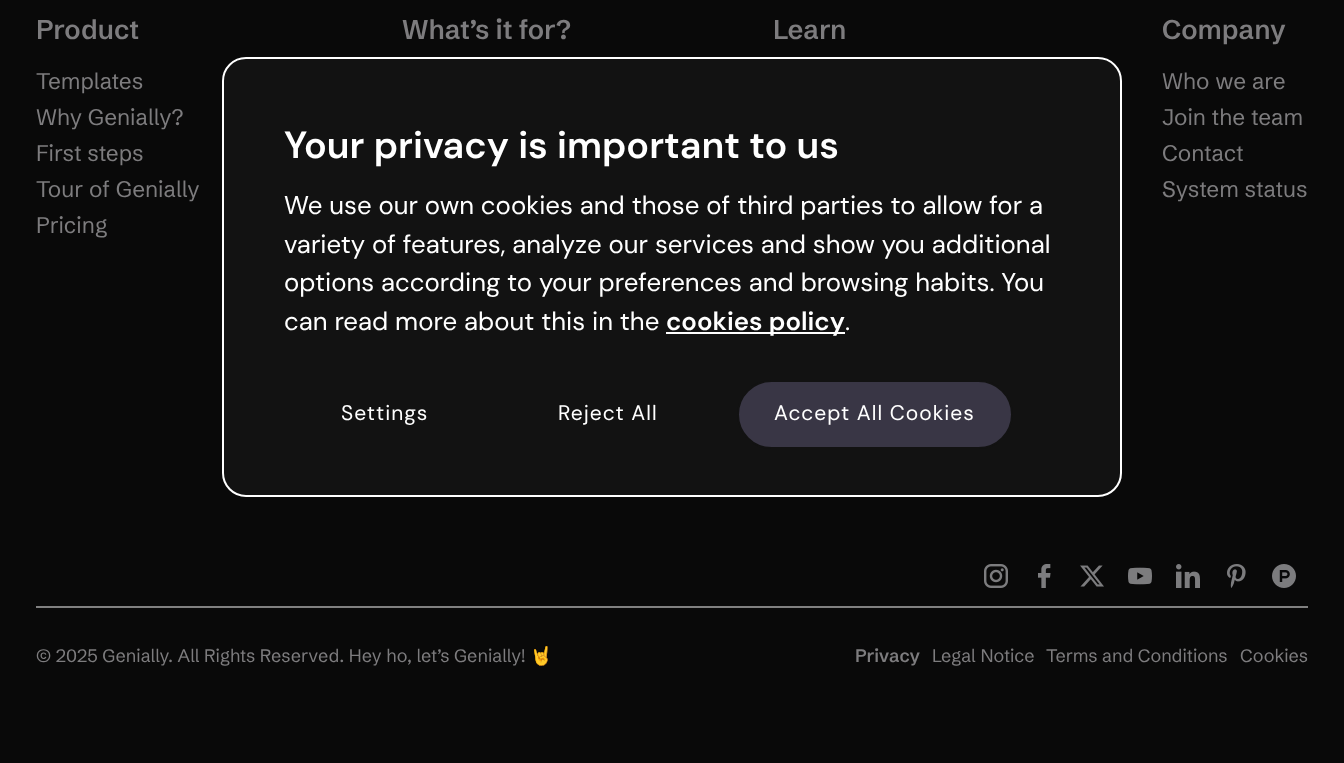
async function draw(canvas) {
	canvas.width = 1344;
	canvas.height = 763;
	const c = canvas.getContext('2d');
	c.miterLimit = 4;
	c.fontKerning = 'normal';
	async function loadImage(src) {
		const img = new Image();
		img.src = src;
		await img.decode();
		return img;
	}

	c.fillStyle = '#090909';
	c.fillRect(0, 0, 1344, 763);
	c.font = '600 27px Schibsted Grotesk';
	c.fillStyle = '#7d7c7e';
	c.fillText('Product', 36, 39);
	c.font = '22.5px Schibsted Grotesk';
	for (const [text, x, y] of [
		['Templates', 36, 89],
		['Why Genially?', 36, 125],
		['First steps', 36, 161],
		['Tour of Genially', 36, 197],
		['Pricing', 36, 233],
	]) {
		c.fillText(text, x, y);
	}
	c.font = '600 27px Schibsted Grotesk';
	for (const [text, x, y] of [
		['What’s it for?', 402, 39],
		['Learn', 773, 39],
		['Company', 1162, 39],
	]) {
		c.fillText(text, x, y);
	}
	c.font = '22.5px Schibsted Grotesk';
	for (const [text, x, y] of [
		['Who we are', 1162, 89],
		['Join the team', 1162, 125],
		['Contact', 1162, 161],
		['System status', 1162, 197],
	]) {
		c.fillText(text, x, y);
	}
	c.drawImage(await loadImage('img1.png'), 984, 564, 24, 24);
	c.drawImage(await loadImage('img2.png'), 1038, 564, 13, 24);
	c.drawImage(await loadImage('img3.png'), 1080, 565, 24, 22);
	c.drawImage(await loadImage('img4.png'), 1128, 567, 24, 18);
	c.drawImage(await loadImage('img5.png'), 1176, 564, 24, 24);
	c.drawImage(await loadImage('img6.png'), 1227, 564, 19, 24);
	c.drawImage(await loadImage('img7.png'), 1272, 564, 24, 24);
	c.fillStyle = '#808080';
	c.fillRect(36, 606, 1272, 2);
	c.font = '18px Schibsted Grotesk';
	c.fillStyle = '#7d7c7e';
	c.fillText('© 2025 Genially. All Rights Reserved. Hey ho, let’s Genially!', 36, 662);
	c.font = '18px Noto Color Emoji';
	c.fillText('🤘', 530, 662);
	c.font = '600 18px Schibsted Grotesk';
	c.fillText('Privacy', 855, 662);
	c.font = '18px Schibsted Grotesk';
	for (const [text, x, y] of [
		['Legal Notice', 932, 662],
		['Terms and Conditions', 1046, 662],
		['Cookies', 1240, 662],
	]) {
		c.fillText(text, x, y);
	}
	c.fillStyle = '#121212';
	c.beginPath();
	c.roundRect(223, 58, 898, 438, 23);
	c.fill();
	c.strokeStyle = '#fff';
	c.lineWidth = 2;
	c.stroke();
	c.font = '600 37.75px DM Sans';
	c.fillStyle = '#fff';
	c.fillText('Your privacy is important to us', 284, 158);
	c.font = '25.8px DM Sans';
	for (const [text, x, y] of [
		['We use our own cookies and those of third parties to allow for a', 284, 214],
		['variety of features, analyze our services and show you additional', 284, 253],
		['options according to your preferences and browsing habits. You', 284, 291],
		['can read more about this in the', 284, 330],
	]) {
		c.fillText(text, x, y);
	}
	c.fillRect(666, 332, 179, 2);
	c.font = '600 25.8px DM Sans';
	c.fillText('cookies policy', 666, 330);
	c.font = '25.8px DM Sans';
	c.fillText('.', 845, 330);
	c.letterSpacing = '1px';
	c.font = '21px DM Sans';
	c.fillText('Settings', 341, 420);
	c.fillText('Reject All', 558, 420);
	c.fillStyle = '#393645';
	c.beginPath();
	c.roundRect(738, 381, 274, 67, 33.5);
	c.fill();
	c.strokeStyle = '#121212';
	c.stroke();
	c.fillStyle = '#fff';
	c.fillText('Accept All Cookies', 774, 420);
}

draw(document.querySelector('canvas'));
